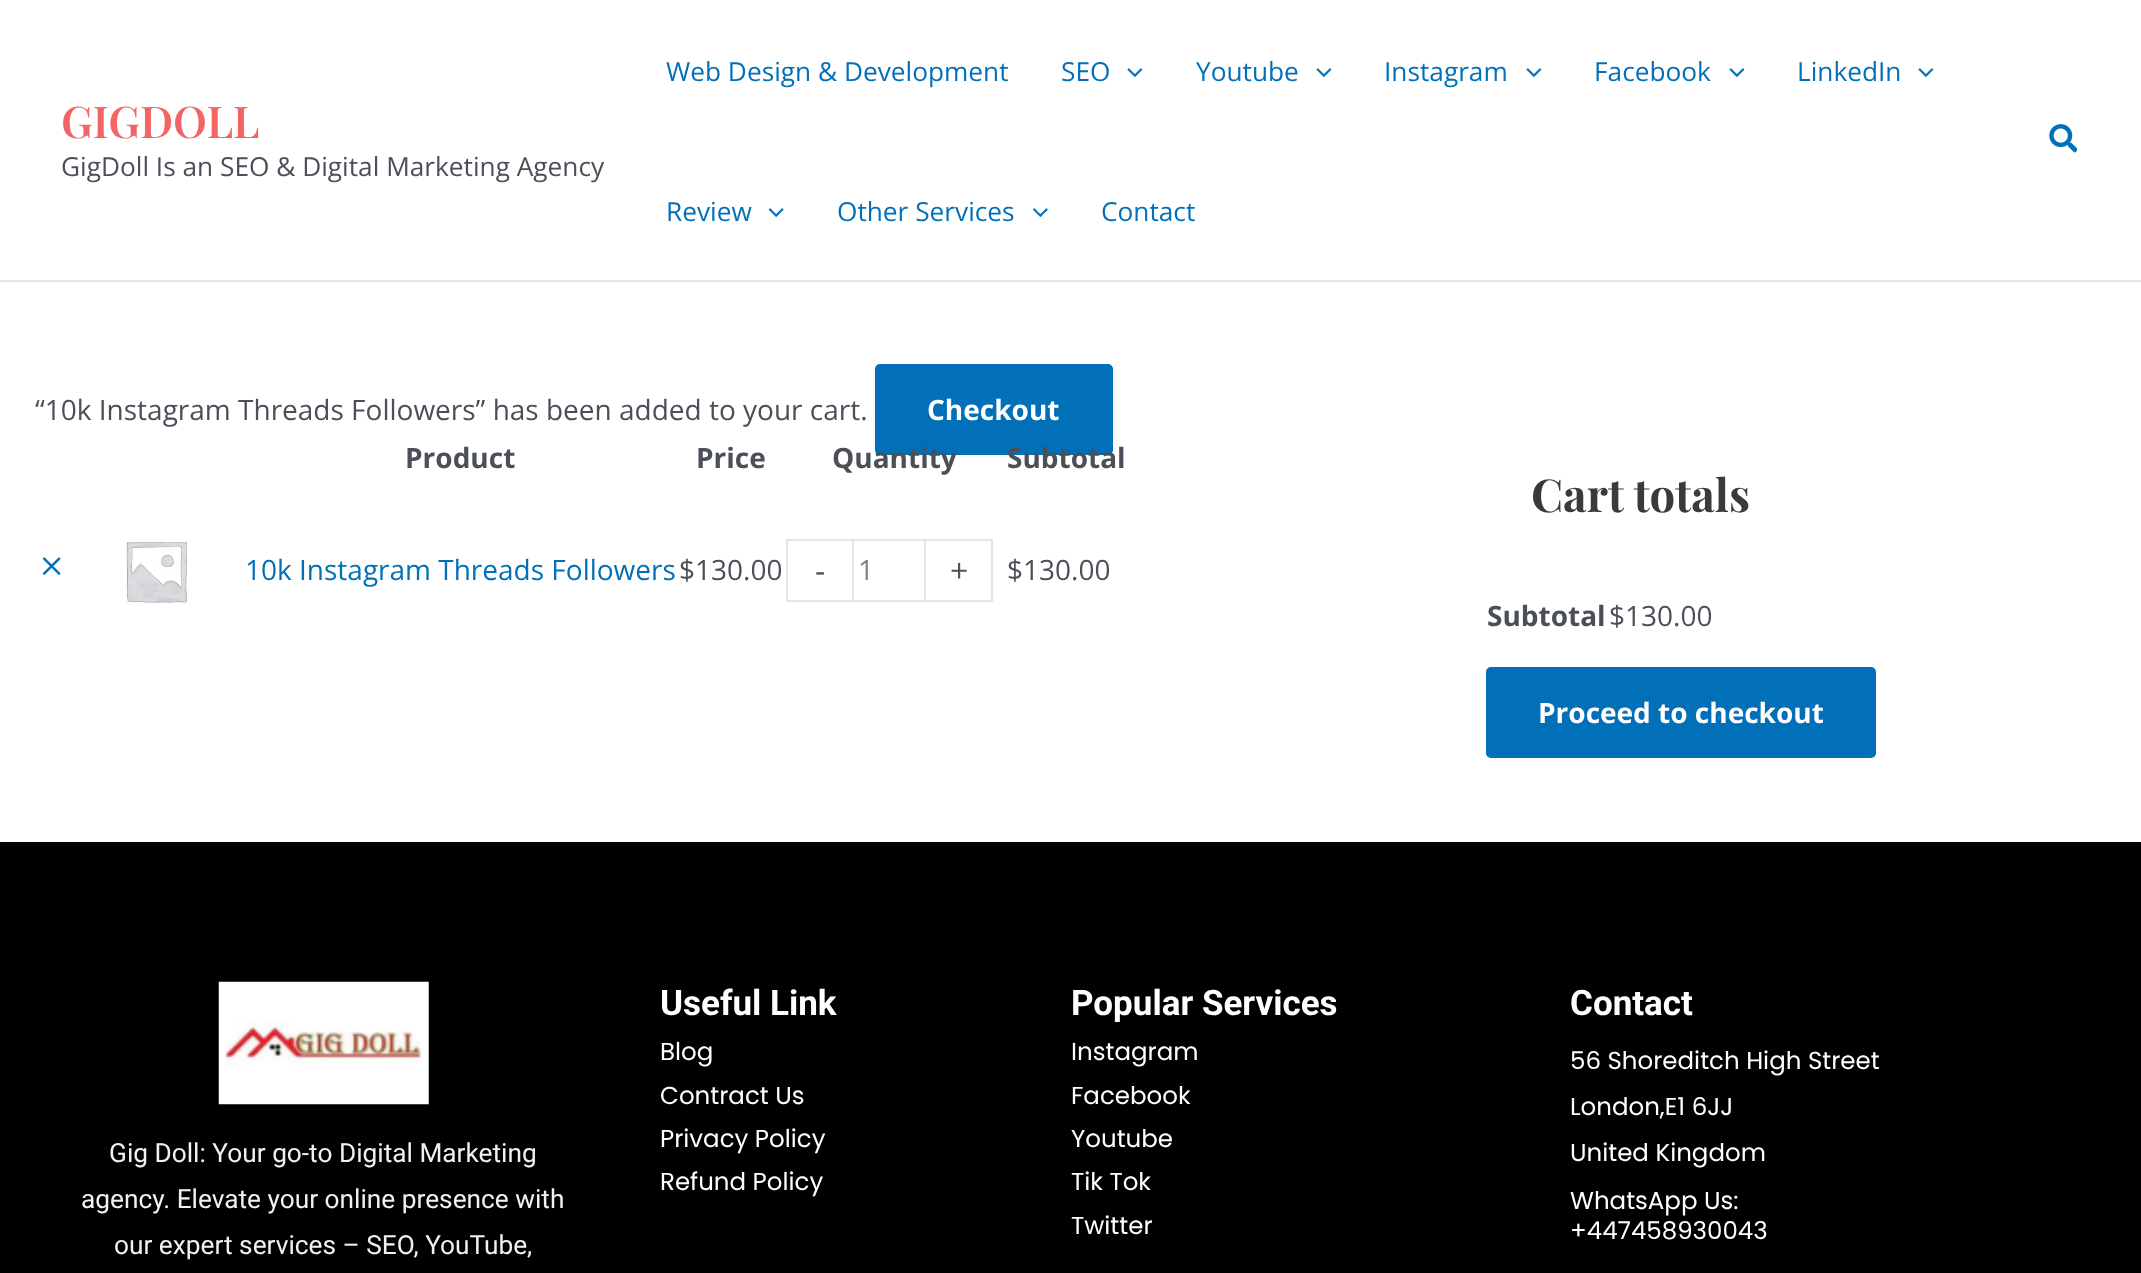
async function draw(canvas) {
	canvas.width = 2141;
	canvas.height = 1273;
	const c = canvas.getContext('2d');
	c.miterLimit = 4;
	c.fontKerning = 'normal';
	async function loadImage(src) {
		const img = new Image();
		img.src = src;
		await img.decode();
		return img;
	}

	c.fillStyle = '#fff';
	c.fillRect(0, 0, 2141, 1273);
	c.fillStyle = '#e5e5e5';
	c.fillRect(0, 280, 2141, 2);
	c.font = '600 43.75px Playfair Display';
	c.fillStyle = '#f26565';
	c.fillText('GIGDOLL', 61, 138);
	c.font = '26.25px Open Sans';
	c.fillStyle = '#4b4f58';
	c.fillText('GigDoll Is an SEO & Digital Marketing Agency', 61, 176);
	c.fillStyle = '#0170b9';
	c.fillText('Web Design & Development', 666, 81);
	c.fillText('SEO', 1061, 81);
	c.drawImage(await loadImage('img1.png'), 1127, 68, 16, 10);
	c.fillText('Youtube', 1196, 81);
	c.drawImage(await loadImage('img1.png'), 1316, 68, 16, 10);
	c.fillText('Instagram', 1384, 81);
	c.drawImage(await loadImage('img1.png'), 1526, 68, 16, 10);
	c.fillText('Facebook', 1594, 81);
	c.drawImage(await loadImage('img1.png'), 1729, 68, 16, 10);
	c.fillText('LinkedIn', 1797, 81);
	c.drawImage(await loadImage('img1.png'), 1918, 68, 16, 10);
	c.fillText('Review', 666, 221);
	c.drawImage(await loadImage('img2.png'), 768, 208, 16, 10);
	c.fillText('Other Services', 837, 221);
	c.drawImage(await loadImage('img3.png'), 1033, 208, 15, 10);
	c.fillText('Contact', 1101, 221);
	c.drawImage(await loadImage('img4.png'), 2049, 124, 28, 29);
	c.font = '28px Open Sans';
	c.fillStyle = '#4b4f58';
	c.fillText('“10k Instagram Threads Followers” has been added to your cart.', 35, 420);
	c.fillStyle = '#0170b9';
	c.beginPath();
	c.roundRect(875, 364, 238, 91, 5);
	c.fill();
	c.font = 'bold 28px Open Sans';
	c.fillStyle = '#fff';
	c.fillText('Checkout', 927, 420);
	c.fillStyle = '#4b4f58';
	for (const [text, x, y] of [
		['Product', 405, 468],
		['Price', 696, 468],
		['Quantity', 832, 468],
		['Subtotal', 1007, 468],
	]) {
		c.fillText(text, x, y);
	}
	c.drawImage(await loadImage('img5.png'), 43, 557, 18, 18);
	c.drawImage(await loadImage('img6.png'), 125, 542, 63, 62);
	c.font = '28px Open Sans';
	c.fillStyle = '#0170b9';
	c.fillText('10k Instagram Threads Followers', 245, 580);
	c.fillStyle = '#4b4f58';
	c.fillText('$130.00', 679, 580);
	for (const [x, y, w, h, color] of [
		[786, 539, 66, 2, '#e5e5e5'],
		[786, 600, 66, 2, '#e5e5e5'],
		[786, 539, 2, 63, '#e5e5e5'],
	]) {
		c.fillStyle = color;
		c.fillRect(x, y, w, h);
	}
	c.font = '32px Open Sans';
	c.fillStyle = '#4b4f58';
	c.fillText('-', 815, 582);
	c.strokeStyle = '#e5e5e5';
	c.lineWidth = 2;
	c.strokeRect(853, 540, 72, 61);
	c.font = '28px Open Sans';
	c.fillStyle = '#808285';
	c.fillText('1', 858, 580);
	for (const [x, y, w, h, color] of [
		[926, 539, 66, 2, '#e5e5e5'],
		[991, 539, 2, 63, '#e5e5e5'],
		[926, 600, 66, 2, '#e5e5e5'],
	]) {
		c.fillStyle = color;
		c.fillRect(x, y, w, h);
	}
	c.font = '32px Open Sans';
	c.fillStyle = '#4b4f58';
	c.fillText('+', 950, 582);
	c.font = '28px Open Sans';
	c.fillText('$130.00', 1007, 580);
	c.font = 'bold 45.5px Playfair Display';
	c.fillStyle = '#3a3a3a';
	c.fillText('Cart totals', 1531, 512);
	c.font = 'bold 28px Open Sans';
	c.fillStyle = '#4b4f58';
	c.fillText('Subtotal', 1487, 626);
	c.font = '28px Open Sans';
	c.fillText('$130.00', 1609, 626);
	c.fillStyle = '#0170b9';
	c.beginPath();
	c.roundRect(1486, 667, 390, 91, 5);
	c.fill();
	c.font = 'bold 28px Open Sans';
	c.fillStyle = '#fff';
	c.fillText('Proceed to checkout', 1538, 723);
	c.fillStyle = '#000';
	c.fillRect(0, 842, 2141, 431);
	c.drawImage(await loadImage('img7.png'), 218, 981, 211, 124);
	c.font = '26.25px Roboto';
	c.fillStyle = '#f1f1f1';
	for (const [text, x, y] of [
		['Gig Doll: Your go-to Digital Marketing', 109, 1162],
		['agency. Elevate your online presence with', 81, 1208],
		['our expert services – SEO, YouTube,', 114, 1254],
	]) {
		c.fillText(text, x, y);
	}
	c.font = 'bold 35px Roboto';
	c.fillStyle = '#fff';
	c.fillText('Useful Link', 660, 1015);
	c.font = '24.5px Poppins';
	for (const [text, x, y] of [
		['Blog', 660, 1060],
		['Contract Us', 660, 1104],
		['Privacy Policy', 660, 1147],
		['Refund Policy', 660, 1190],
	]) {
		c.fillText(text, x, y);
	}
	c.font = 'bold 35px Roboto';
	c.fillText('Popular Services', 1071, 1015);
	c.font = '24.5px Poppins';
	for (const [text, x, y] of [
		['Instagram', 1071, 1060],
		['Facebook', 1071, 1104],
		['Youtube', 1071, 1147],
		['Tik Tok', 1071, 1190],
		['Twitter', 1071, 1234],
	]) {
		c.fillText(text, x, y);
	}
	c.font = 'bold 35px Roboto';
	c.fillText('Contact', 1570, 1015);
	c.font = '24.5px Poppins';
	for (const [text, x, y] of [
		['56 Shoreditch High Street', 1570, 1069],
		['London,E1 6JJ', 1570, 1115],
		['United Kingdom', 1570, 1161],
		['WhatsApp Us:', 1570, 1209],
		['+447458930043', 1570, 1239],
	]) {
		c.fillText(text, x, y);
	}
}

draw(document.querySelector('canvas'));
